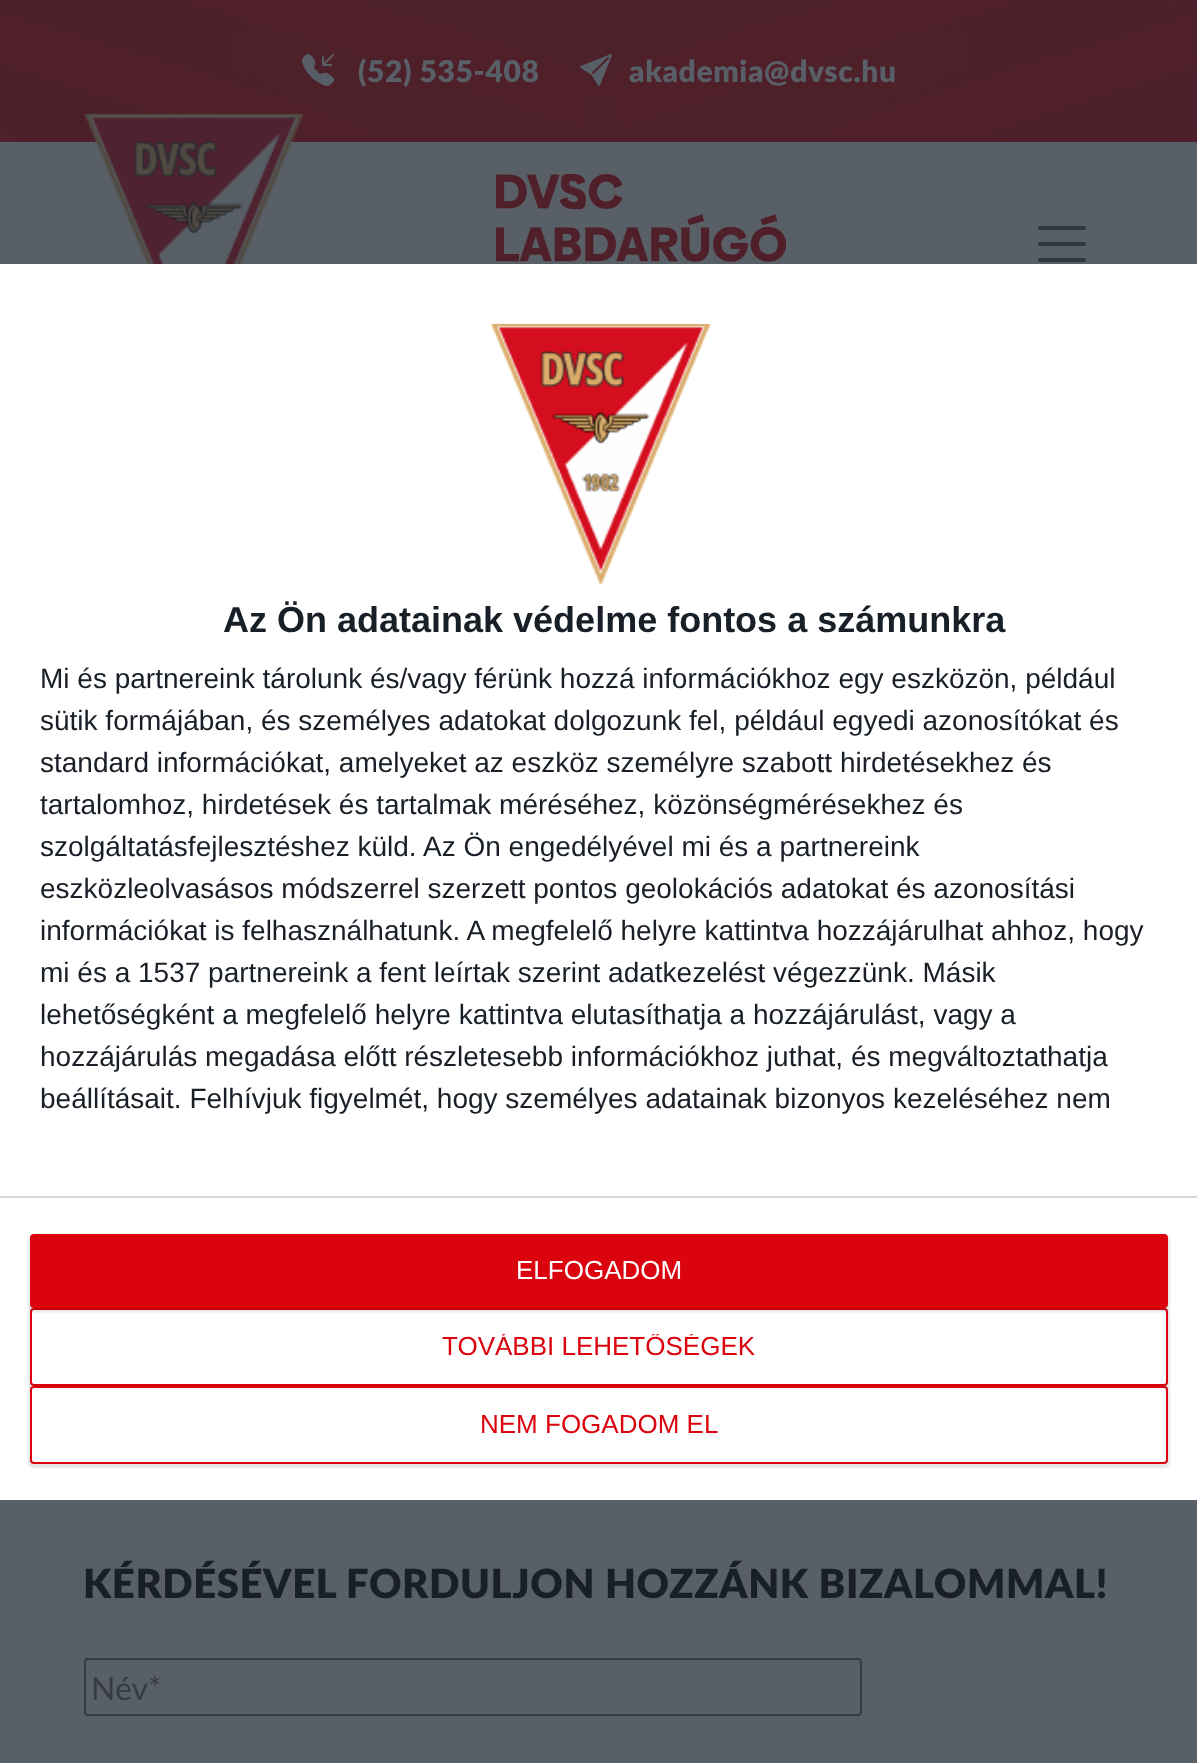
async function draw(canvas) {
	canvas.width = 1197;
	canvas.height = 1763;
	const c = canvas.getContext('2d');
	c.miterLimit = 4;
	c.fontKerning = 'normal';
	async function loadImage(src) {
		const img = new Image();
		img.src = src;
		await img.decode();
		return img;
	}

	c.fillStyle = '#595f67';
	c.fillRect(0, 0, 1197, 1763);
	c.drawImage(await loadImage('img1.png'), 0, 0, 1197, 142);
	c.drawImage(await loadImage('img2.png'), 302, 54, 32, 32);
	c.letterSpacing = '0.6px';
	c.font = '900 30px Lato';
	c.fillText('(52) 535-408', 358, 82);
	c.drawImage(await loadImage('img3.png'), 580, 54, 32, 32);
	c.fillText('akademia@dvsc.hu', 629, 82);
	c.drawImage(await loadImage('img4.png'), 84, 114, 220, 150);
	c.drawImage(await loadImage('img5.png'), 496, 174, 290, 88);
	c.beginPath();
	c.moveTo(1040, 228);
	c.lineTo(1084, 228);
	c.moveTo(1040, 244);
	c.lineTo(1084, 244);
	c.moveTo(1040, 260);
	c.lineTo(1084, 260);
	c.strokeStyle = '#2f363f';
	c.lineWidth = 4;
	c.lineCap = 'round';
	c.stroke();
	c.fillStyle = '#fff';
	c.fillRect(0, 264, 1197, 1236);
	c.drawImage(await loadImage('img6.png'), 490, 324, 222, 261);
	c.letterSpacing = '0px';
	c.font = 'bold 36px Liberation Sans';
	c.fillStyle = '#191f27';
	c.fillText('Az Ön adatainak védelme fontos a számunkra', 223, 632);
	c.font = '28px Liberation Sans';
	for (const [text, x, y] of [
		['Mi és partnereink tárolunk és/vagy férünk hozzá információkhoz egy eszközön, például', 40, 688],
		['sütik formájában, és személyes adatokat dolgozunk fel, például egyedi azonosítókat és', 40, 730],
		['standard információkat, amelyeket az eszköz személyre szabott hirdetésekhez és', 40, 772],
		['tartalomhoz, hirdetések és tartalmak méréséhez, közönségmérésekhez és', 40, 814],
		['szolgáltatásfejlesztéshez küld.', 40, 856],
		['Az Ön engedélyével mi és a partnereink', 423, 856],
		['eszközleolvasásos módszerrel szerzett pontos geolokációs adatokat és azonosítási', 40, 898],
		['információkat is felhasználhatunk. A megfelelő helyre kattintva hozzájárulhat ahhoz, hogy', 40, 940],
		['mi és a 1537 partnereink a fent leírtak szerint adatkezelést végezzünk. Másik', 40, 982],
		['lehetőségként a megfelelő helyre kattintva elutasíthatja a hozzájárulást, vagy a', 40, 1024],
		['hozzájárulás megadása előtt részletesebb információkhoz juthat, és megváltoztathatja', 40, 1066],
		['beállításait. Felhívjuk figyelmét, hogy személyes adatainak bizonyos kezeléséhez nem', 40, 1108],
	]) {
		c.fillText(text, x, y);
	}
	c.fillStyle = '#d8d8d8';
	c.fillRect(0, 1196, 1197, 2);
	c.fillStyle = '#0000001a';
	c.filter = 'blur(1px)';
	c.beginPath();
	c.roundRect(28, 1308, 1142, 82, 6);
	c.fill();
	c.filter = 'none';
	c.fillStyle = '#fff';
	c.beginPath();
	c.roundRect(31, 1309, 1136, 76, 3);
	c.fill();
	c.strokeStyle = '#da030e';
	c.lineWidth = 2;
	c.stroke();
	c.fillStyle = '#0000001a';
	c.filter = 'blur(1px)';
	c.beginPath();
	c.roundRect(28, 1234, 1142, 78, 6);
	c.fill();
	c.filter = 'none';
	c.fillStyle = '#da030e';
	c.beginPath();
	c.roundRect(30, 1234, 1138, 74, 4);
	c.fill();
	c.font = '26px Liberation Sans';
	c.fillStyle = '#fff';
	c.fillText('ELFOGADOM', 516, 1279);
	c.save();
	c.beginPath();
	c.rect(442, 1334, 314, 26);
	c.clip();
	c.fillStyle = '#da030e';
	c.fillText('TOVÁBBI LEHETŐSÉGEK', 442, 1355);
	c.restore();
	c.fillStyle = '#0000001a';
	c.filter = 'blur(1px)';
	c.beginPath();
	c.roundRect(28, 1386, 1142, 82, 6);
	c.fill();
	c.filter = 'none';
	c.fillStyle = '#fff';
	c.beginPath();
	c.roundRect(31, 1387, 1136, 76, 3);
	c.fill();
	c.stroke();
	c.fillStyle = '#da030e';
	c.fillText('NEM FOGADOM EL', 480, 1433);
	c.letterSpacing = '0.6px';
	c.font = '900 40px Lato';
	c.fillStyle = '#191f27';
	c.fillText('KÉRDÉSÉVEL FORDULJON HOZZÁNK BIZALOMMAL!', 83, 1598);
	c.beginPath();
	c.roundRect(85, 1659, 776, 56, 3);
	c.strokeStyle = '#363c45';
	c.stroke();
	c.letterSpacing = '0px';
	c.font = '32px Lato';
	c.fillStyle = '#363c44';
	c.fillText('Név*', 91, 1700);
}

draw(document.querySelector('canvas'));
